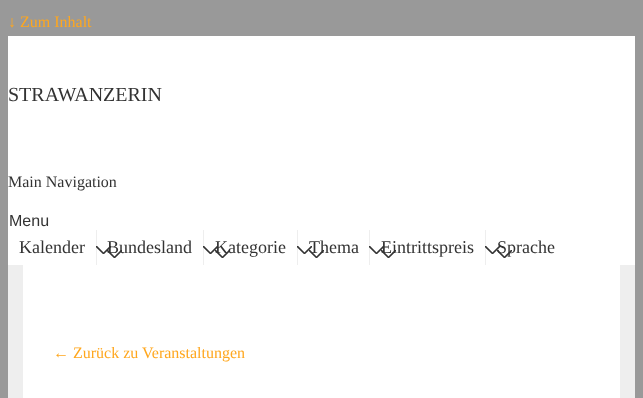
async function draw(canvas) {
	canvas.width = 643;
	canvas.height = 398;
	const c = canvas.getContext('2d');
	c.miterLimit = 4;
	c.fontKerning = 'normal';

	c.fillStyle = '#999';
	c.fillRect(0, 0, 643, 398);
	c.font = '16px Liberation Serif';
	c.fillStyle = '#ffa71e';
	c.fillText('↓ Zum Inhalt', 8, 27);
	c.fillStyle = '#fff';
	c.fillRect(8, 36, 627, 229);
	c.font = '20px Liberation Serif';
	c.fillStyle = '#333';
	c.fillText('STRAWANZERIN', 8, 101);
	c.font = '16px Liberation Serif';
	c.fillText('Main Navigation', 8, 187);
	c.font = '16px Liberation Sans';
	c.fillText('Menu', 9, 226);
	c.font = '18px Liberation Serif';
	c.fillText('Kalender', 19, 253);
	c.fillStyle = '#eee';
	c.fillRect(96, 230, 1, 35);
	c.save();
	c.beginPath();
	c.rect(107, 250, 15, 8);
	c.clip();
	c.beginPath();
	c.moveTo(107.5, 250.5);
	c.lineTo(114.5, 257.5);
	c.lineTo(121.5, 250.5);
	c.strokeStyle = '#333';
	c.lineWidth = 1.6;
	c.lineCap = 'round';
	c.stroke();
	c.restore();
	c.save();
	c.beginPath();
	c.rect(96, 246, 15, 8);
	c.clip();
	c.beginPath();
	c.moveTo(96.5, 246.5);
	c.lineTo(103.5, 253.5);
	c.lineTo(110.5, 246.5);
	c.strokeStyle = '#333';
	c.lineWidth = 1.6;
	c.lineCap = 'round';
	c.stroke();
	c.restore();
	c.fillStyle = '#333';
	c.fillText('Bundesland', 107, 253);
	c.fillStyle = '#eee';
	c.fillRect(203, 230, 1, 35);
	c.save();
	c.beginPath();
	c.rect(215, 250, 15, 8);
	c.clip();
	c.beginPath();
	c.moveTo(215.5, 250.5);
	c.lineTo(222.5, 257.5);
	c.lineTo(229.5, 250.5);
	c.strokeStyle = '#333';
	c.lineWidth = 1.6;
	c.lineCap = 'round';
	c.stroke();
	c.restore();
	c.save();
	c.beginPath();
	c.rect(203, 246, 15, 8);
	c.clip();
	c.beginPath();
	c.moveTo(203.5, 246.5);
	c.lineTo(210.5, 253.5);
	c.lineTo(217.5, 246.5);
	c.strokeStyle = '#333';
	c.lineWidth = 1.6;
	c.lineCap = 'round';
	c.stroke();
	c.restore();
	c.fillStyle = '#333';
	c.fillText('Kategorie', 215, 253);
	c.fillStyle = '#eee';
	c.fillRect(297, 230, 1, 35);
	c.save();
	c.beginPath();
	c.rect(309, 250, 15, 8);
	c.clip();
	c.beginPath();
	c.moveTo(309.5, 250.5);
	c.lineTo(316.5, 257.5);
	c.lineTo(323.5, 250.5);
	c.strokeStyle = '#333';
	c.lineWidth = 1.6;
	c.lineCap = 'round';
	c.stroke();
	c.restore();
	c.save();
	c.beginPath();
	c.rect(297, 246, 15, 8);
	c.clip();
	c.beginPath();
	c.moveTo(297.5, 246.5);
	c.lineTo(304.5, 253.5);
	c.lineTo(311.5, 246.5);
	c.strokeStyle = '#333';
	c.lineWidth = 1.6;
	c.lineCap = 'round';
	c.stroke();
	c.restore();
	c.fillStyle = '#333';
	c.fillText('Thema', 309, 253);
	c.fillStyle = '#eee';
	c.fillRect(369, 230, 1, 35);
	c.save();
	c.beginPath();
	c.rect(381, 250, 15, 8);
	c.clip();
	c.beginPath();
	c.moveTo(381.5, 250.5);
	c.lineTo(388.5, 257.5);
	c.lineTo(395.5, 250.5);
	c.strokeStyle = '#333';
	c.lineWidth = 1.6;
	c.lineCap = 'round';
	c.stroke();
	c.restore();
	c.save();
	c.beginPath();
	c.rect(369, 246, 15, 8);
	c.clip();
	c.beginPath();
	c.moveTo(369.5, 246.5);
	c.lineTo(376.5, 253.5);
	c.lineTo(383.5, 246.5);
	c.strokeStyle = '#333';
	c.lineWidth = 1.6;
	c.lineCap = 'round';
	c.stroke();
	c.restore();
	c.fillStyle = '#333';
	c.fillText('Eintrittspreis', 381, 253);
	c.fillStyle = '#eee';
	c.fillRect(485, 230, 1, 35);
	c.save();
	c.beginPath();
	c.rect(497, 250, 15, 8);
	c.clip();
	c.beginPath();
	c.moveTo(497.5, 250.5);
	c.lineTo(504.5, 257.5);
	c.lineTo(511.5, 250.5);
	c.strokeStyle = '#333';
	c.lineWidth = 1.6;
	c.lineCap = 'round';
	c.stroke();
	c.restore();
	c.save();
	c.beginPath();
	c.rect(485, 246, 15, 8);
	c.clip();
	c.beginPath();
	c.moveTo(485.5, 246.5);
	c.lineTo(492.5, 253.5);
	c.lineTo(499.5, 246.5);
	c.strokeStyle = '#333';
	c.lineWidth = 1.6;
	c.lineCap = 'round';
	c.stroke();
	c.restore();
	c.fillStyle = '#333';
	c.fillText('Sprache', 497, 253);
	c.fillStyle = '#eee';
	c.fillRect(8, 265, 627, 133);
	c.fillStyle = '#fff';
	c.fillRect(23, 265, 597, 133);
	c.font = '16px Liberation Serif';
	c.fillStyle = '#ffa71e';
	c.fillText('← Zurück zu Veranstaltungen', 53, 358);
}

draw(document.querySelector('canvas'));
